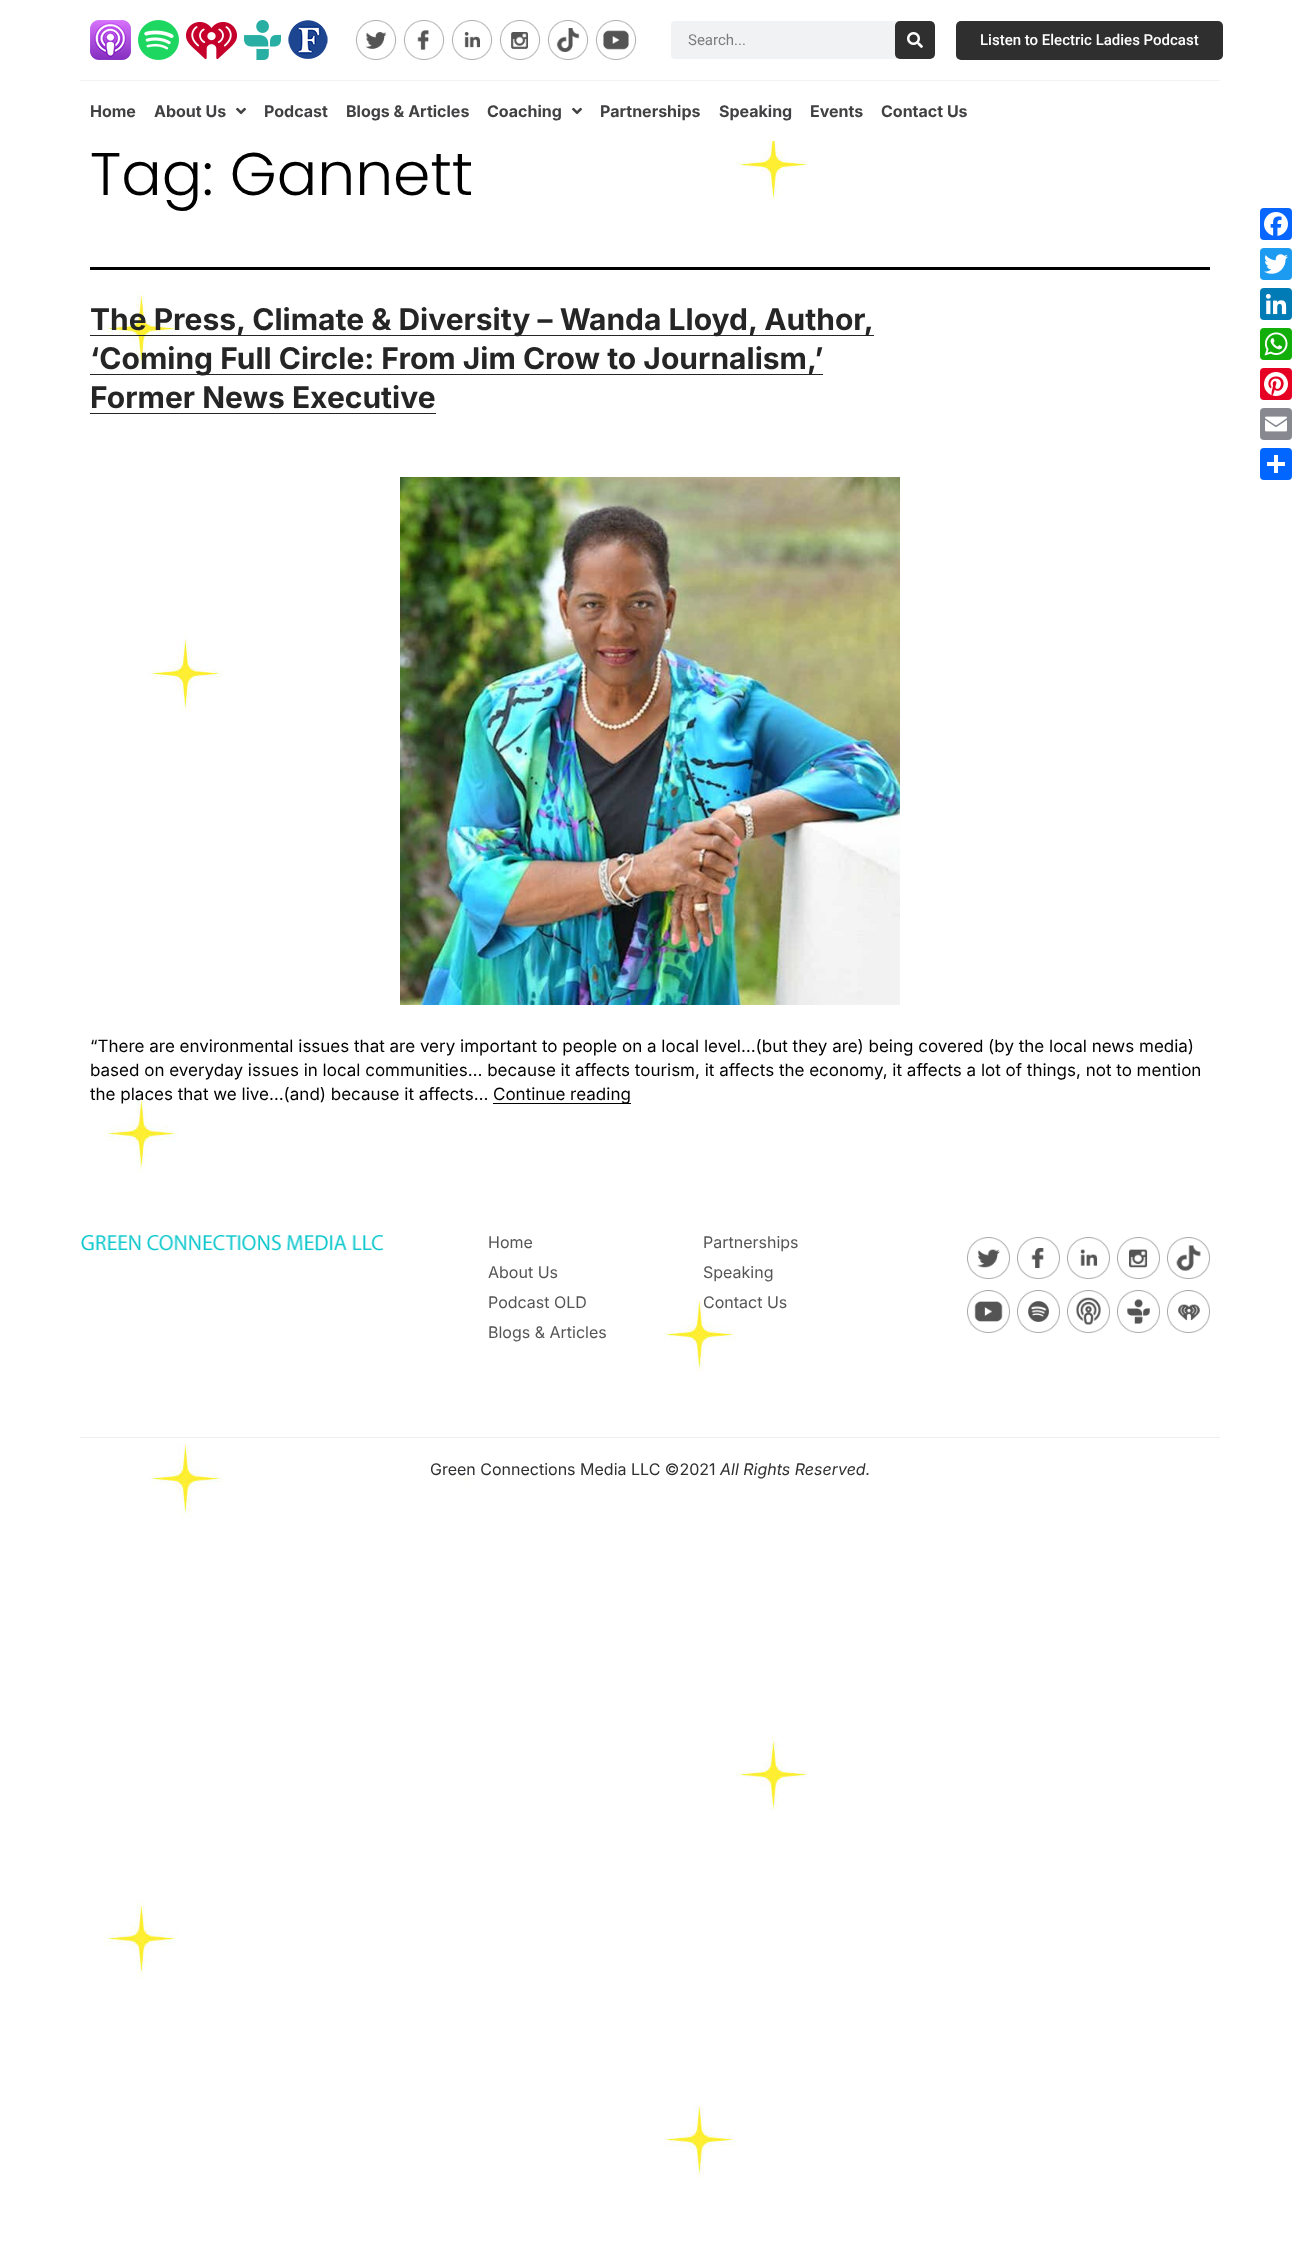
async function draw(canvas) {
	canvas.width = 1300;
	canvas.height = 2243;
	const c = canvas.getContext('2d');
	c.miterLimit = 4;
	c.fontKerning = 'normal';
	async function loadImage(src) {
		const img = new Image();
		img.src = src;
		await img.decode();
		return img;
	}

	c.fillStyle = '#fff';
	c.fillRect(0, 0, 1300, 2243);
	c.drawImage(await loadImage('img1.png'), 104, 141, 704, 2037);
	c.drawImage(await loadImage('img2.png'), 90, 20, 41, 40);
	c.drawImage(await loadImage('img3.png'), 138, 20, 41, 40);
	c.drawImage(await loadImage('img4.png'), 186, 22, 51, 37);
	c.drawImage(await loadImage('img5.png'), 244, 20, 37, 40);
	c.drawImage(await loadImage('img6.png'), 288, 20, 40, 39);
	c.drawImage(await loadImage('img7.png'), 356, 20, 40, 40);
	c.drawImage(await loadImage('img8.png'), 404, 20, 40, 40);
	c.drawImage(await loadImage('img9.png'), 452, 20, 40, 40);
	c.drawImage(await loadImage('img10.png'), 500, 20, 40, 40);
	c.drawImage(await loadImage('img11.png'), 548, 20, 40, 40);
	c.drawImage(await loadImage('img12.png'), 596, 20, 40, 40);
	c.fillStyle = '#f1f2f3';
	c.beginPath();
	c.roundRect(671, 21, 264, 38, 4);
	c.fill();
	c.font = '15px Roboto';
	c.fillStyle = '#7d7d7d';
	c.fillText('Search...', 688, 45);
	c.save();
	c.beginPath();
	c.roundRect(671, 21, 264, 38, 4);
	c.clip();
	c.fillStyle = '#2f2f2f';
	c.beginPath();
	c.roundRect(895, 21, 40, 38, 5);
	c.fill();
	c.restore();
	c.drawImage(await loadImage('img13.png'), 907, 32, 16, 16);
	c.fillStyle = '#2f2f2f';
	c.beginPath();
	c.roundRect(956, 21, 267, 39, 5);
	c.fill();
	c.font = '500 15px Roboto';
	c.fillStyle = '#fff';
	c.fillText('Listen to Electric Ladies Podcast', 980, 45);
	c.fillStyle = '#f2f2f2';
	c.fillRect(80, 80, 1140, 1);
	c.font = 'bold 16px Inter';
	c.fillStyle = '#414042';
	c.fillText('Home', 90, 117);
	c.fillText('About Us', 154, 117);
	c.drawImage(await loadImage('img14.png'), 236, 107, 10, 8);
	for (const [text, x, y] of [
		['Podcast', 264, 117],
		['Blogs & Articles', 346, 117],
		['Coaching', 487, 117],
	]) {
		c.fillText(text, x, y);
	}
	c.drawImage(await loadImage('img14.png'), 572, 107, 10, 8);
	for (const [text, x, y] of [
		['Partnerships', 600, 117],
		['Speaking', 719, 117],
		['Events', 810, 117],
		['Contact Us', 881, 117],
	]) {
		c.fillText(text, x, y);
	}
	c.fillStyle = '#000';
	c.fillRect(90, 267, 1120, 3);
	c.font = '300 60px Poppins';
	c.fillText('Tag: Gannett', 90, 195);
	c.fillStyle = '#252525';
	c.fillRect(90, 335, 784, 1);
	c.font = 'bold 30px Inter';
	c.fillText('The Press, Climate & Diversity – Wanda Lloyd, Author,', 90, 330);
	c.fillRect(90, 374, 733, 1);
	c.fillText('‘Coming Full Circle: From Jim Crow to Journalism,’', 90, 369);
	c.fillText('Former News Executive', 90, 408);
	c.fillRect(90, 413, 346, 1);
	c.drawImage(await loadImage('img15.png'), 400, 477, 500, 528);
	c.font = '17px Inter';
	c.fillStyle = '#000';
	for (const [text, x, y] of [
		['“There are environmental issues that are very important to people on a local level…(but they are) being covered (by the local news media)', 90, 1052],
		['based on everyday issues in local communities… because it affects tourism, it affects the economy, it affects a lot of things, not to mention', 90, 1076],
		['the places that we live…(and) because it affects…', 90, 1100],
	]) {
		c.fillText(text, x, y);
	}
	c.fillRect(493, 1103, 138, 1);
	c.fillText('Continue reading', 493, 1100);
	c.fillStyle = '#0866ff';
	c.beginPath();
	c.roundRect(1260, 208, 32, 32, 4);
	c.fill();
	c.drawImage(await loadImage('img16.png'), 1264, 212, 24, 24);
	c.fillStyle = '#1d9bf0';
	c.beginPath();
	c.roundRect(1260, 248, 32, 32, 4);
	c.fill();
	c.drawImage(await loadImage('img17.png'), 1264, 254, 24, 20);
	c.fillStyle = '#007bb5';
	c.beginPath();
	c.roundRect(1260, 288, 32, 32, 4);
	c.fill();
	c.drawImage(await loadImage('img18.png'), 1265, 293, 22, 22);
	c.fillStyle = '#12af0a';
	c.beginPath();
	c.roundRect(1260, 328, 32, 32, 4);
	c.fill();
	c.drawImage(await loadImage('img19.png'), 1264, 332, 24, 24);
	c.fillStyle = '#e60023';
	c.beginPath();
	c.roundRect(1260, 368, 32, 32, 4);
	c.fill();
	c.drawImage(await loadImage('img20.png'), 1264, 372, 24, 24);
	c.fillStyle = '#888990';
	c.beginPath();
	c.roundRect(1260, 408, 32, 32, 4);
	c.fill();
	c.drawImage(await loadImage('img21.png'), 1265, 416, 22, 16);
	c.fillStyle = '#0166ff';
	c.beginPath();
	c.roundRect(1260, 448, 32, 32, 4);
	c.fill();
	c.fillStyle = '#fff';
	c.fillRect(1274, 455, 4, 18);
	c.fillRect(1267, 462, 18, 4);
	c.drawImage(await loadImage('img22.png'), 81, 1235, 303, 16);
	c.font = '16px Inter';
	c.fillStyle = '#555';
	for (const [text, x, y] of [
		['Home', 488, 1248],
		['About Us', 488, 1278],
		['Podcast OLD', 488, 1308],
		['Blogs & Articles', 488, 1338],
		['Partnerships', 703, 1248],
		['Speaking', 703, 1278],
		['Contact Us', 703, 1308],
	]) {
		c.fillText(text, x, y);
	}
	c.drawImage(await loadImage('img23.png'), 967, 1237, 43, 42);
	c.drawImage(await loadImage('img24.png'), 1017, 1237, 43, 42);
	c.drawImage(await loadImage('img25.png'), 1067, 1237, 43, 42);
	c.drawImage(await loadImage('img26.png'), 1117, 1237, 43, 42);
	c.drawImage(await loadImage('img27.png'), 1167, 1237, 43, 42);
	c.drawImage(await loadImage('img28.png'), 967, 1290, 43, 43);
	c.drawImage(await loadImage('img29.png'), 1017, 1290, 43, 43);
	c.drawImage(await loadImage('img30.png'), 1067, 1290, 43, 43);
	c.drawImage(await loadImage('img31.png'), 1117, 1290, 43, 43);
	c.drawImage(await loadImage('img32.png'), 1167, 1290, 43, 43);
	c.fillStyle = '#eee';
	c.fillRect(80, 1437, 1140, 1);
	c.fillStyle = '#2f2f2f';
	c.fillText('Green Connections Media LLC ©2021', 430, 1475);
	c.font = 'italic 16px Inter';
	c.fillText('All Rights Reserved.', 720, 1475);
}

draw(document.querySelector('canvas'));
